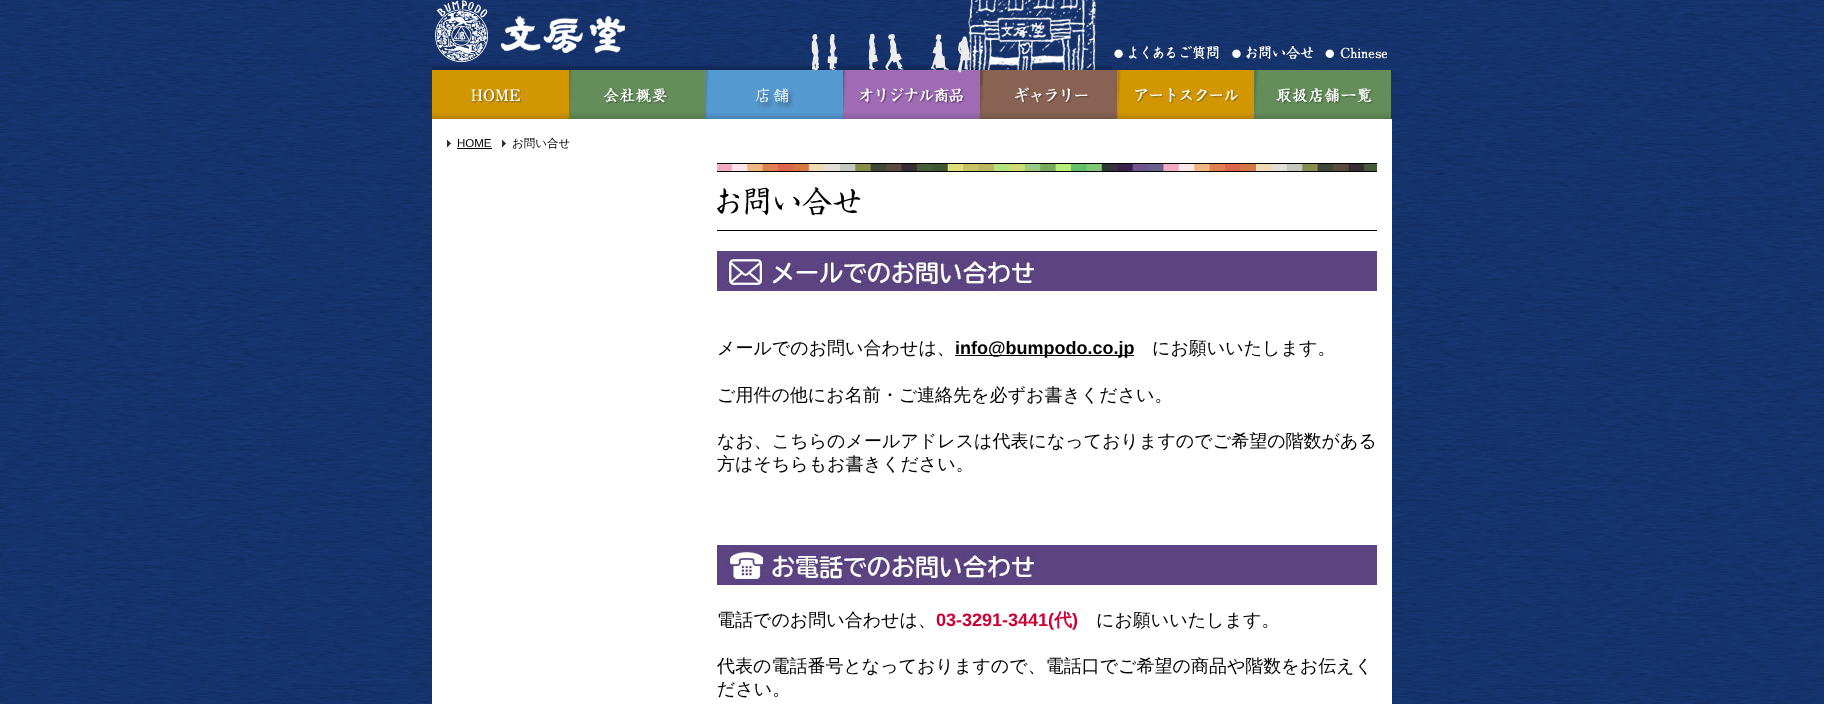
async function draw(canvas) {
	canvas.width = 1824;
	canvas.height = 704;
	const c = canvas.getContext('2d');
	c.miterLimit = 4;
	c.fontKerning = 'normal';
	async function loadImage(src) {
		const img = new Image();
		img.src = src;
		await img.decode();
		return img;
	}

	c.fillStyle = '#fff';
	c.fillRect(0, 0, 1824, 704);
	c.drawImage(await loadImage('img1.png'), 0, 0, 1824, 704);
	c.drawImage(await loadImage('img2.png'), 432, 0, 680, 70);
	c.drawImage(await loadImage('img3.png'), 1114, 46, 105, 14);
	c.drawImage(await loadImage('img4.png'), 1232, 46, 82, 14);
	c.drawImage(await loadImage('img5.png'), 1325, 47, 62, 12);
	c.drawImage(await loadImage('img6.png'), 432, 70, 137, 49);
	c.drawImage(await loadImage('img7.png'), 569, 70, 137, 49);
	c.drawImage(await loadImage('img8.png'), 706, 70, 137, 49);
	c.drawImage(await loadImage('img9.png'), 843, 70, 137, 49);
	c.drawImage(await loadImage('img10.png'), 980, 70, 137, 49);
	c.drawImage(await loadImage('img11.png'), 1117, 70, 137, 49);
	c.drawImage(await loadImage('img12.png'), 1254, 70, 137, 49);
	c.fillRect(432, 119, 960, 585);
	c.drawImage(await loadImage('img13.png'), 447, 140, 4, 7);
	c.font = '11.5px Liberation Sans';
	c.fillStyle = '#000';
	c.fillText('HOME', 457, 147);
	c.fillRect(457, 148, 35, 1);
	c.drawImage(await loadImage('img13.png'), 502, 140, 4, 7);
	c.font = '500 11.5px WenQuanYi Zen Hei';
	c.fillText('お問い合せ', 512, 147);
	c.drawImage(await loadImage('img14.png'), 717, 163, 660, 9);
	c.fillRect(717, 230, 660, 1);
	c.drawImage(await loadImage('img15.png'), 717, 187, 144, 29);
	c.drawImage(await loadImage('img16.png'), 717, 251, 660, 40);
	c.font = '500 18px WenQuanYi Zen Hei';
	c.fillText('メールでのお問い合わせは、', 717, 354);
	c.fillRect(955, 355, 179, 1);
	c.font = 'bold 18px Liberation Sans';
	c.fillText('info@bumpodo.co.jp', 955, 354);
	c.font = '500 18px WenQuanYi Zen Hei';
	for (const [text, x, y] of [
		['にお願いいたします。', 1152, 354],
		['ご用件の他にお名前・ご連絡先を必ずお書きください。', 717, 401],
		['なお、こちらのメールアドレスは代表になっておりますのでご希望の階数がある', 717, 447],
		['方はそちらもお書きください。', 717, 470],
	]) {
		c.fillText(text, x, y);
	}
	c.drawImage(await loadImage('img17.png'), 717, 545, 660, 40);
	c.fillText('電話でのお問い合わせは、', 717, 626);
	c.font = 'bold 18px Liberation Sans';
	c.fillStyle = '#c03';
	c.fillText('03-3291-3441(', 936, 626);
	c.font = 'bold 18px WenQuanYi Zen Hei';
	c.fillText('代', 1054, 626);
	c.font = 'bold 18px Liberation Sans';
	c.fillText(')', 1072, 626);
	c.font = '500 18px WenQuanYi Zen Hei';
	c.fillStyle = '#000';
	for (const [text, x, y] of [
		['にお願いいたします。', 1096, 626],
		['代表の電話番号となっておりますので、電話口でご希望の商品や階数をお伝えく', 717, 672],
		['ださい。', 717, 695],
	]) {
		c.fillText(text, x, y);
	}
}

draw(document.querySelector('canvas'));
